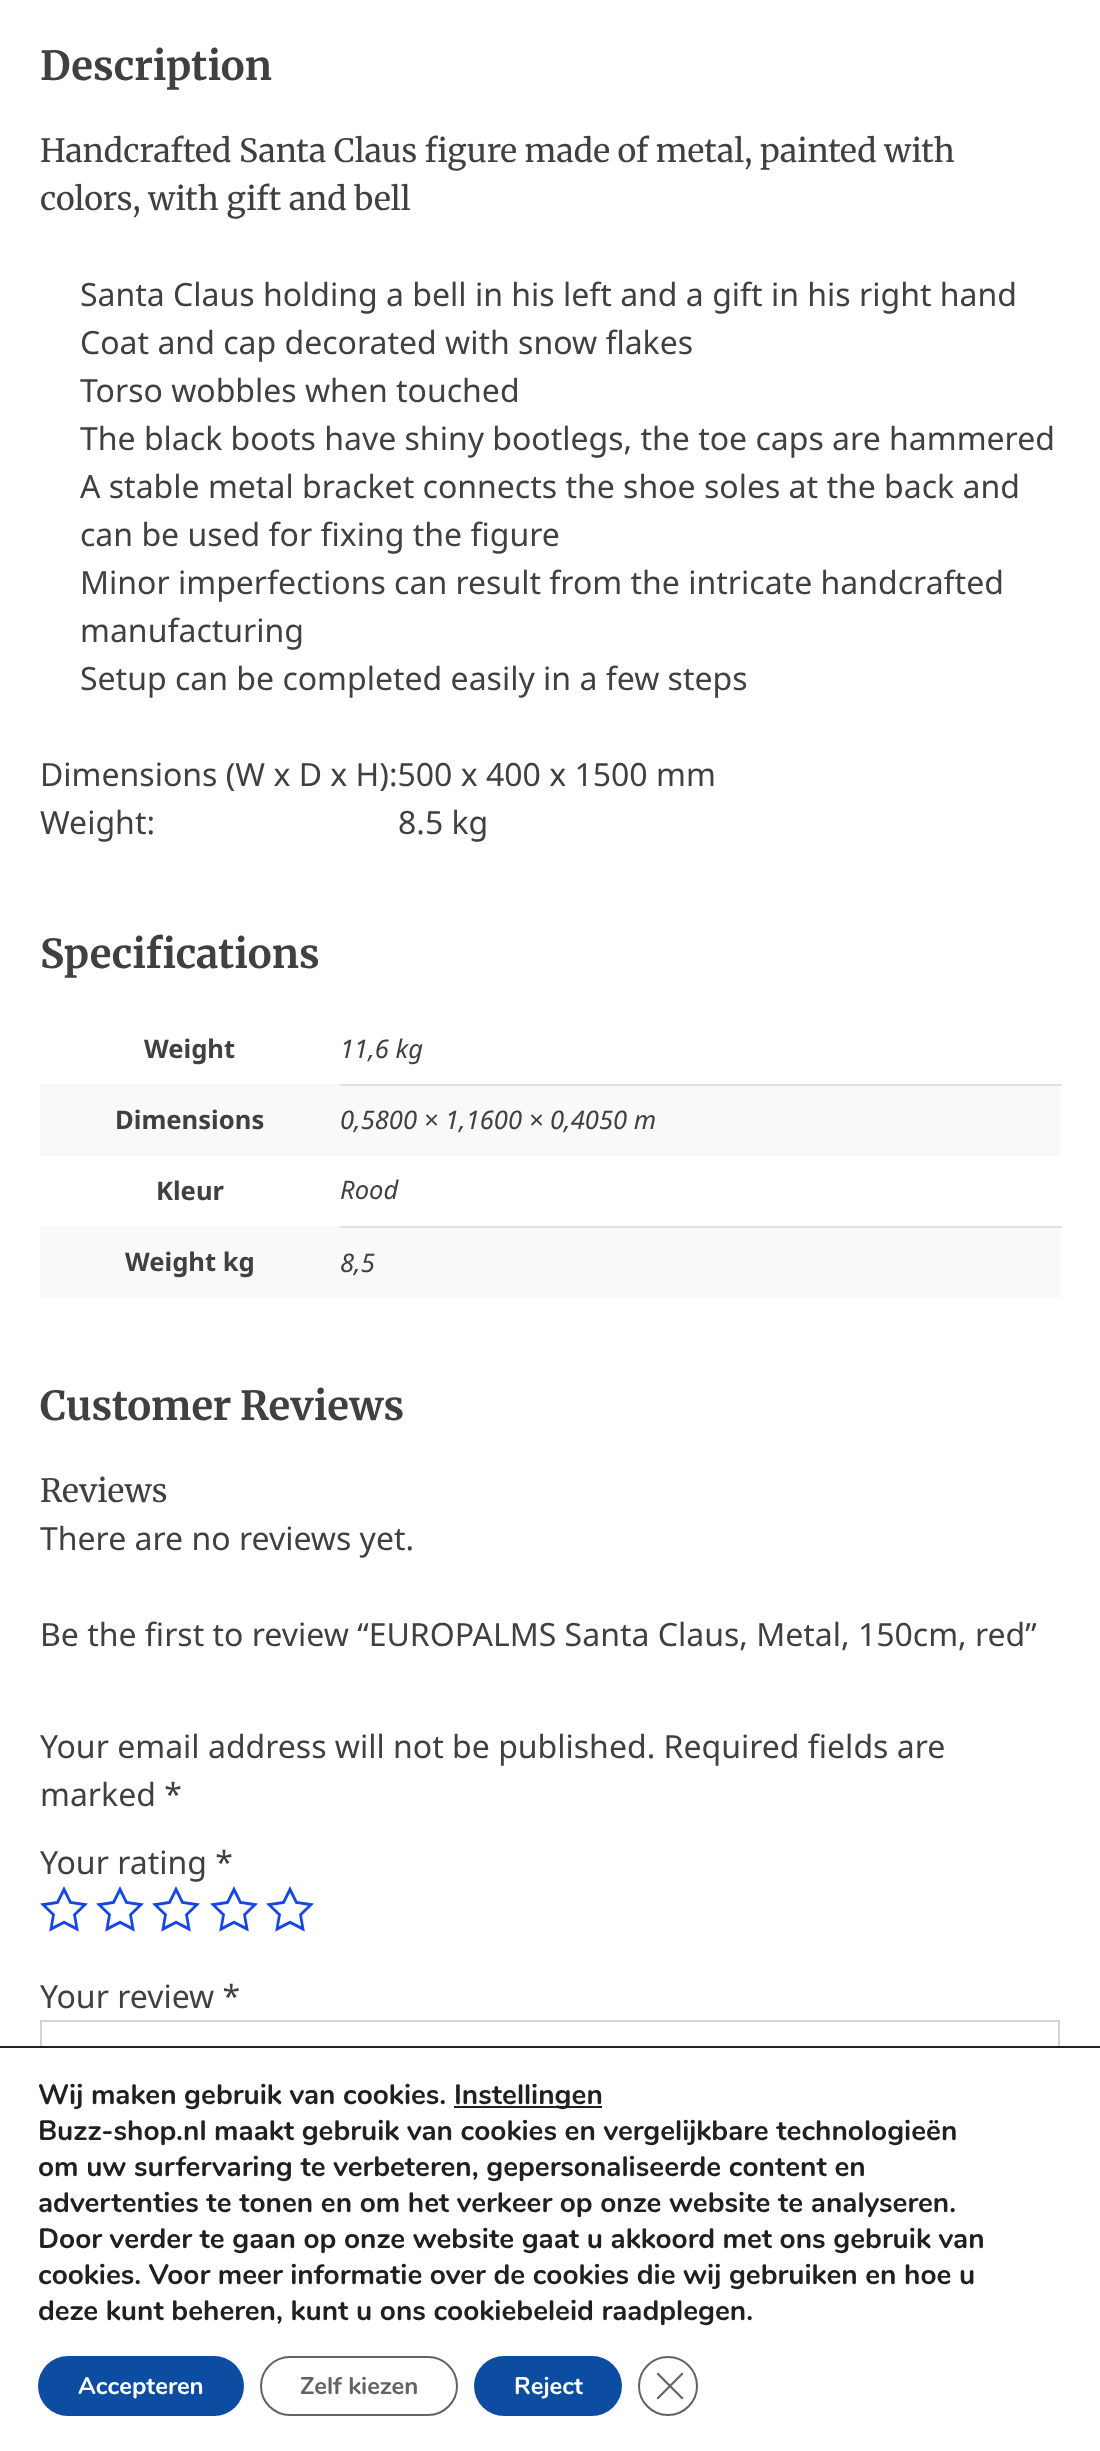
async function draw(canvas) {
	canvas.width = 1100;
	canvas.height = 2451;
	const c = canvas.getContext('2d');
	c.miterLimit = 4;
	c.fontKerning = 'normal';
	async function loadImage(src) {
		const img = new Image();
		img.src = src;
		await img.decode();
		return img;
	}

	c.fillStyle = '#fff';
	c.fillRect(0, 0, 1100, 2451);
	c.fillStyle = '#e6e6e6';
	c.fillRect(1060, 1084, 2, 2);
	c.fillRect(1060, 1226, 2, 2);
	c.font = 'bold 40px Merriweather';
	c.fillStyle = '#404040';
	c.fillText('Description', 40, 80);
	c.font = '32px Merriweather';
	c.fillText('Handcrafted Santa Claus figure made of metal, painted with', 40, 162);
	c.fillText('colors, with gift and bell', 40, 210);
	c.font = '32px Noto Sans';
	for (const [text, x, y] of [
		['Santa Claus holding a bell in his left and a gift in his right hand', 80, 306],
		['Coat and cap decorated with snow flakes', 80, 354],
		['Torso wobbles when touched', 80, 402],
		['The black boots have shiny bootlegs, the toe caps are hammered', 80, 450],
		['A stable metal bracket connects the shoe soles at the back and', 80, 498],
		['can be used for fixing the figure', 80, 546],
		['Minor imperfections can result from the intricate handcrafted', 80, 594],
		['manufacturing', 80, 642],
		['Setup can be completed easily in a few steps', 80, 690],
		['Dimensions (W x D x H):500 x 400 x 1500 mm', 40, 786],
		['Weight:', 40, 834],
		['8.5 kg', 398, 834],
	]) {
		c.fillText(text, x, y);
	}
	c.font = 'bold 40px Merriweather';
	c.fillText('Specifications', 40, 968);
	c.font = 'bold 25.6px Noto Sans';
	c.fillText('Weight', 144, 1058);
	c.font = 'italic 25.6px Noto Sans';
	c.fillText('11,6 kg', 340, 1058);
	c.fillStyle = '#f9f9f9';
	c.fillRect(40, 1084, 300, 72);
	c.font = 'bold 25.6px Noto Sans';
	c.fillStyle = '#404040';
	c.fillText('Dimensions', 115, 1129);
	c.fillStyle = '#f9f9f9';
	c.fillRect(340, 1086, 720, 70);
	c.fillStyle = '#e0e0e0';
	c.fillRect(340, 1084, 720, 2);
	c.font = 'italic 25.6px Noto Sans';
	c.fillStyle = '#404040';
	c.fillText('0,5800 × 1,1600 × 0,4050 m', 340, 1129);
	c.font = 'bold 25.6px Noto Sans';
	c.fillText('Kleur', 156, 1200);
	c.font = 'italic 25.6px Noto Sans';
	c.fillText('Rood', 340, 1199);
	c.fillStyle = '#f9f9f9';
	c.fillRect(40, 1226, 300, 72);
	c.font = 'bold 25.6px Noto Sans';
	c.fillStyle = '#404040';
	c.fillText('Weight kg', 125, 1271);
	c.fillStyle = '#f9f9f9';
	c.fillRect(340, 1228, 720, 70);
	c.fillStyle = '#e0e0e0';
	c.fillRect(340, 1226, 720, 2);
	c.font = 'italic 25.6px Noto Sans';
	c.fillStyle = '#404040';
	c.fillText('8,5', 340, 1272);
	c.wordSpacing = '-1px';
	c.font = 'bold 40px Merriweather';
	c.fillText('Customer Reviews', 40, 1420);
	c.wordSpacing = '0px';
	c.font = '32px Merriweather';
	c.fillText('Reviews', 40, 1502);
	c.font = '32px Noto Sans';
	for (const [text, x, y] of [
		['There are no reviews yet.', 40, 1550],
		['Be the first to review “EUROPALMS Santa Claus, Metal, 150cm, red”', 40, 1646],
		['Your email address will not be published. Required fields are', 40, 1758],
		['marked *', 40, 1806],
		['Your rating *', 40, 1874],
	]) {
		c.fillText(text, x, y);
	}
	c.drawImage(await loadImage('img1.png'), 40, 1886, 48, 46);
	c.drawImage(await loadImage('img1.png'), 96, 1886, 48, 46);
	c.drawImage(await loadImage('img1.png'), 152, 1886, 48, 46);
	c.drawImage(await loadImage('img1.png'), 210, 1886, 48, 46);
	c.drawImage(await loadImage('img1.png'), 266, 1886, 48, 46);
	c.fillText('Your review *', 40, 2008);
	c.strokeStyle = '#d4d4d4';
	c.lineWidth = 2;
	c.strokeRect(41, 2021, 1018, 148);
	c.fillStyle = '#fff';
	c.fillRect(40, 2048, 1020, 122);
	c.fillStyle = '#202020';
	c.fillRect(0, 2046, 1100, 2);
	c.font = 'bold 28px Nunito';
	c.fillText('Wij maken gebruik van cookies.', 38, 2104);
	c.fillRect(454, 2106, 148, 2);
	for (const [text, x, y] of [
		['Instellingen', 454, 2104],
		['Buzz-shop.nl maakt gebruik van cookies en vergelijkbare technologieën', 38, 2140],
		['om uw surfervaring te verbeteren, gepersonaliseerde content en', 38, 2176],
		['advertenties te tonen en om het verkeer op onze website te analyseren.', 38, 2212],
		['Door verder te gaan op onze website gaat u akkoord met ons gebruik van', 38, 2248],
		['cookies. Voor meer informatie over de cookies die wij gebruiken en hoe u', 38, 2284],
		['deze kunt beheren, kunt u ons cookiebeleid raadplegen.', 38, 2320],
	]) {
		c.fillText(text, x, y);
	}
	c.fillStyle = '#0c4da2';
	c.beginPath();
	c.roundRect(38, 2356, 206, 60, 30);
	c.fill();
	c.font = 'bold 24px Nunito';
	c.fillStyle = '#fff';
	c.fillText('Accepteren', 78, 2394);
	c.beginPath();
	c.roundRect(261, 2357, 196, 58, 29);
	c.strokeStyle = '#636363';
	c.stroke();
	c.fillStyle = '#636363';
	c.fillText('Zelf kiezen', 300, 2394);
	c.fillStyle = '#0c4da2';
	c.beginPath();
	c.roundRect(474, 2356, 148, 60, 30);
	c.fill();
	c.fillStyle = '#fff';
	c.fillText('Reject', 514, 2394);
	c.beginPath();
	c.arc(668, 2386, 29, 0, 2 * Math.PI);
	c.strokeStyle = '#626262';
	c.stroke();
	c.fillStyle = '#626262';
	c.beginPath();
	c.moveTo(682, 2372.5);
	c.lineTo(683.5, 2374);
	c.lineTo(658, 2399.5);
	c.lineTo(656.5, 2398);
	c.closePath();
	c.fill();
	c.beginPath();
	c.moveTo(656.5, 2374);
	c.lineTo(658, 2372.5);
	c.lineTo(683.5, 2398);
	c.lineTo(682, 2399.5);
	c.closePath();
	c.fill();
}

draw(document.querySelector('canvas'));
